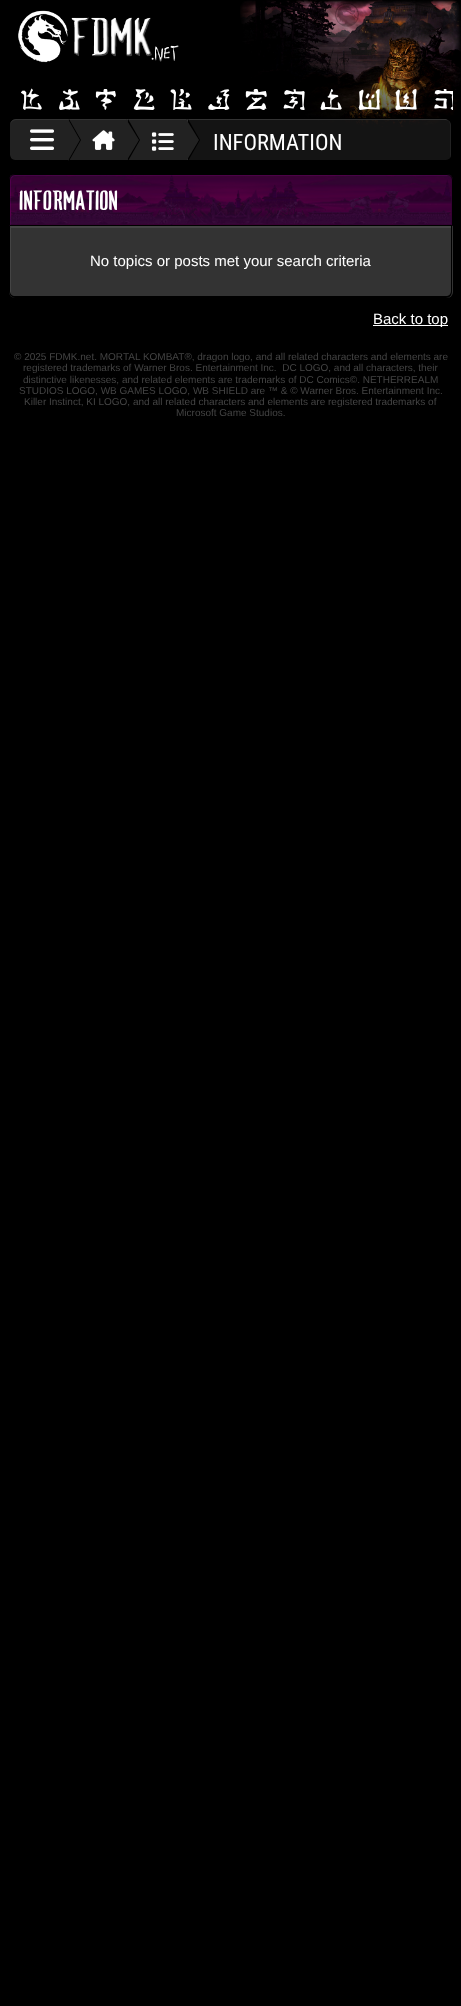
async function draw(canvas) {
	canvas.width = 461;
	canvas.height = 2006;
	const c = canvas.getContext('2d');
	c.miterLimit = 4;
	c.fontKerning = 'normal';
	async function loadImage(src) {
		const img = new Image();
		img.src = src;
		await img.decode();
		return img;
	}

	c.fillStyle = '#000';
	c.fillRect(0, 0, 461, 2006);
	c.drawImage(await loadImage('img1.png'), 240, 0, 221, 127);
	c.drawImage(await loadImage('img2.png'), 18, 10, 161, 53);
	c.font = 'bold 35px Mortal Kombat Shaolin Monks';
	c.fillStyle = '#fff';
	for (const [text, x, y] of [
		['A', 19, 110],
		['B', 57, 110],
		['C', 94, 110],
		['D', 132, 110],
		['E', 169, 110],
		['F', 207, 110],
		['G', 244, 110],
		['H', 282, 110],
		['I', 319, 110],
		['J', 357, 110],
		['K', 394, 110],
	]) {
		c.fillText(text, x, y);
	}
	c.save();
	c.beginPath();
	c.rect(9, 80, 444, 38);
	c.clip();
	c.fillText('L', 432, 110);
	c.restore();
	c.beginPath();
	c.roundRect(9.5, 118.5, 443, 42, 5.5);
	c.strokeStyle = '#000';
	c.stroke();
	c.save();
	c.beginPath();
	c.roundRect(10, 119, 441, 41, 5);
	c.clip();
	c.fillStyle = '#222';
	c.beginPath();
	c.roundRect(10, 119, 58, 42, [6, 0, 0, 6]);
	c.fill();
	c.restore();
	c.fillStyle = '#333';
	c.beginPath();
	c.moveTo(16, 120);
	c.lineTo(68, 120);
	c.lineTo(68, 119);
	c.lineTo(16, 119);
	c.bezierCurveTo(13, 119, 10, 122, 10, 125);
	c.lineTo(10, 126);
	c.bezierCurveTo(10, 123, 13, 120, 16, 120);
	c.closePath();
	c.fill();
	c.fillStyle = '#222';
	c.fillRect(68, 120, 118, 40);
	c.fillStyle = '#333';
	c.fillRect(68, 119, 118, 1);
	c.fillStyle = '#000';
	c.beginPath();
	c.moveTo(69, 161);
	c.lineTo(69, 119);
	c.lineTo(81, 140);
	c.closePath();
	c.fill();
	c.fillStyle = '#222';
	c.beginPath();
	c.moveTo(68, 161);
	c.lineTo(68, 119);
	c.lineTo(80, 140);
	c.closePath();
	c.fill();
	c.drawImage(await loadImage('img3.png'), 30, 129, 24, 21);
	c.fillStyle = '#000';
	c.beginPath();
	c.moveTo(128, 161);
	c.lineTo(128, 119);
	c.lineTo(140, 140);
	c.closePath();
	c.fill();
	c.fillStyle = '#222';
	c.beginPath();
	c.moveTo(127, 160);
	c.lineTo(126, 160);
	c.lineTo(126, 119);
	c.lineTo(139, 140);
	c.closePath();
	c.fill();
	c.drawImage(await loadImage('img4.png'), 92, 130, 23, 20);
	c.save();
	c.beginPath();
	c.roundRect(10, 119, 441, 41, 5);
	c.clip();
	c.fillStyle = '#28282880';
	c.beginPath();
	c.roundRect(186, 119, 265, 45, [0, 6, 6, 0]);
	c.fill();
	c.restore();
	c.fillStyle = '#333';
	c.beginPath();
	c.moveTo(188, 120);
	c.lineTo(186, 119);
	c.lineTo(446, 119);
	c.lineTo(449, 121);
	c.bezierCurveTo(448, 120, 446, 120, 445, 120);
	c.closePath();
	c.fill();
	c.fillStyle = '#000';
	c.beginPath();
	c.moveTo(188, 161);
	c.lineTo(188, 119);
	c.lineTo(200, 140);
	c.closePath();
	c.fill();
	c.fillStyle = '#333';
	c.beginPath();
	c.moveTo(186, 119);
	c.lineTo(188, 120);
	c.lineTo(188, 160);
	c.lineTo(186, 160);
	c.closePath();
	c.fill();
	c.fillStyle = '#222';
	c.beginPath();
	c.moveTo(187, 160);
	c.lineTo(186, 160);
	c.lineTo(186, 119);
	c.lineTo(199, 140);
	c.closePath();
	c.fill();
	c.drawImage(await loadImage('img5.png'), 151, 132, 23, 19);
	c.beginPath();
	c.moveTo(448.5, 121.5);
	c.bezierCurveTo(449.5, 122, 450, 123.5, 450, 125);
	c.lineTo(450, 158);
	c.bezierCurveTo(450.5, 157, 451, 156, 451, 155);
	c.lineTo(451, 125);
	c.bezierCurveTo(451, 123.5, 450, 122, 449, 121);
	c.closePath();
	c.fill();
	c.font = '22.5px Roboto Condensed';
	c.fillStyle = '#fff';
	c.fillText('INFORMATION', 213, 150);
	c.fillStyle = '#303';
	c.beginPath();
	c.roundRect(9, 174, 444, 52, [6, 6, 0, 0]);
	c.fill();
	c.fillStyle = '#500050';
	c.beginPath();
	c.moveTo(16, 176);
	c.lineTo(449, 176);
	c.bezierCurveTo(448, 175, 447, 175, 446, 175);
	c.lineTo(15, 175);
	c.bezierCurveTo(12, 175, 10, 177, 10, 180);
	c.lineTo(10, 225);
	c.lineTo(11, 225);
	c.lineTo(11, 181);
	c.bezierCurveTo(11, 178, 13, 176, 16, 176);
	c.closePath();
	c.fill();
	c.beginPath();
	c.roundRect(9.5, 174.5, 443, 51, [5.5, 5.5, 0, 0]);
	c.stroke();
	c.drawImage(await loadImage('img6.png'), 10, 175, 442, 50);
	c.font = '27.5px "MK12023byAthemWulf"';
	c.fillStyle = '#fff';
	c.fillText('INFORMATION', 19, 210);
	c.fillStyle = '#333';
	c.beginPath();
	c.roundRect(9, 226, 444, 72, [0, 0, 6, 6]);
	c.fill();
	c.fillStyle = '#444';
	c.beginPath();
	c.moveTo(11, 228);
	c.lineTo(451, 228);
	c.lineTo(451, 226);
	c.lineTo(10, 226);
	c.lineTo(10, 292);
	c.lineTo(11, 295);
	c.lineTo(11, 292);
	c.closePath();
	c.fill();
	c.fillStyle = '#000';
	c.beginPath();
	c.moveTo(9, 226);
	c.lineTo(452, 226);
	c.lineTo(452, 291);
	c.bezierCurveTo(452, 295, 450, 298, 446, 298);
	c.lineTo(15, 298);
	c.bezierCurveTo(12, 298, 9, 295, 9, 291);
	c.closePath();
	c.moveTo(10, 226);
	c.lineTo(451, 226);
	c.lineTo(451, 291);
	c.bezierCurveTo(451, 294, 449, 296, 446, 296);
	c.lineTo(15, 296);
	c.bezierCurveTo(12, 296, 10, 294, 10, 291);
	c.closePath();
	c.fill('evenodd');
	c.font = '15px Liberation Sans';
	c.fillStyle = '#fff';
	c.fillText('No topics or posts met your search criteria', 90, 266);
	c.fillRect(373, 325, 75, 1);
	c.fillText('Back to top', 373, 324);
	c.font = '10px Liberation Sans';
	c.fillStyle = '#444';
	for (const [text, x, y] of [
		['© 2025 FDMK.net. MORTAL KOMBAT®, dragon logo, and all related characters and elements are', 14, 360],
		['registered trademarks of Warner Bros. Entertainment Inc.  DC LOGO, and all characters, their', 23, 371],
		['distinctive likenesses, and related elements are trademarks of DC Comics©. NETHERREALM', 23, 383],
		['STUDIOS LOGO, WB GAMES LOGO, WB SHIELD are ™ & © Warner Bros. Entertainment Inc.', 19, 394],
		['Killer Instinct, KI LOGO, and all related characters and elements are registered trademarks of', 24, 405],
		['Microsoft Game Studios.', 176, 416],
	]) {
		c.fillText(text, x, y);
	}
}

draw(document.querySelector('canvas'));
